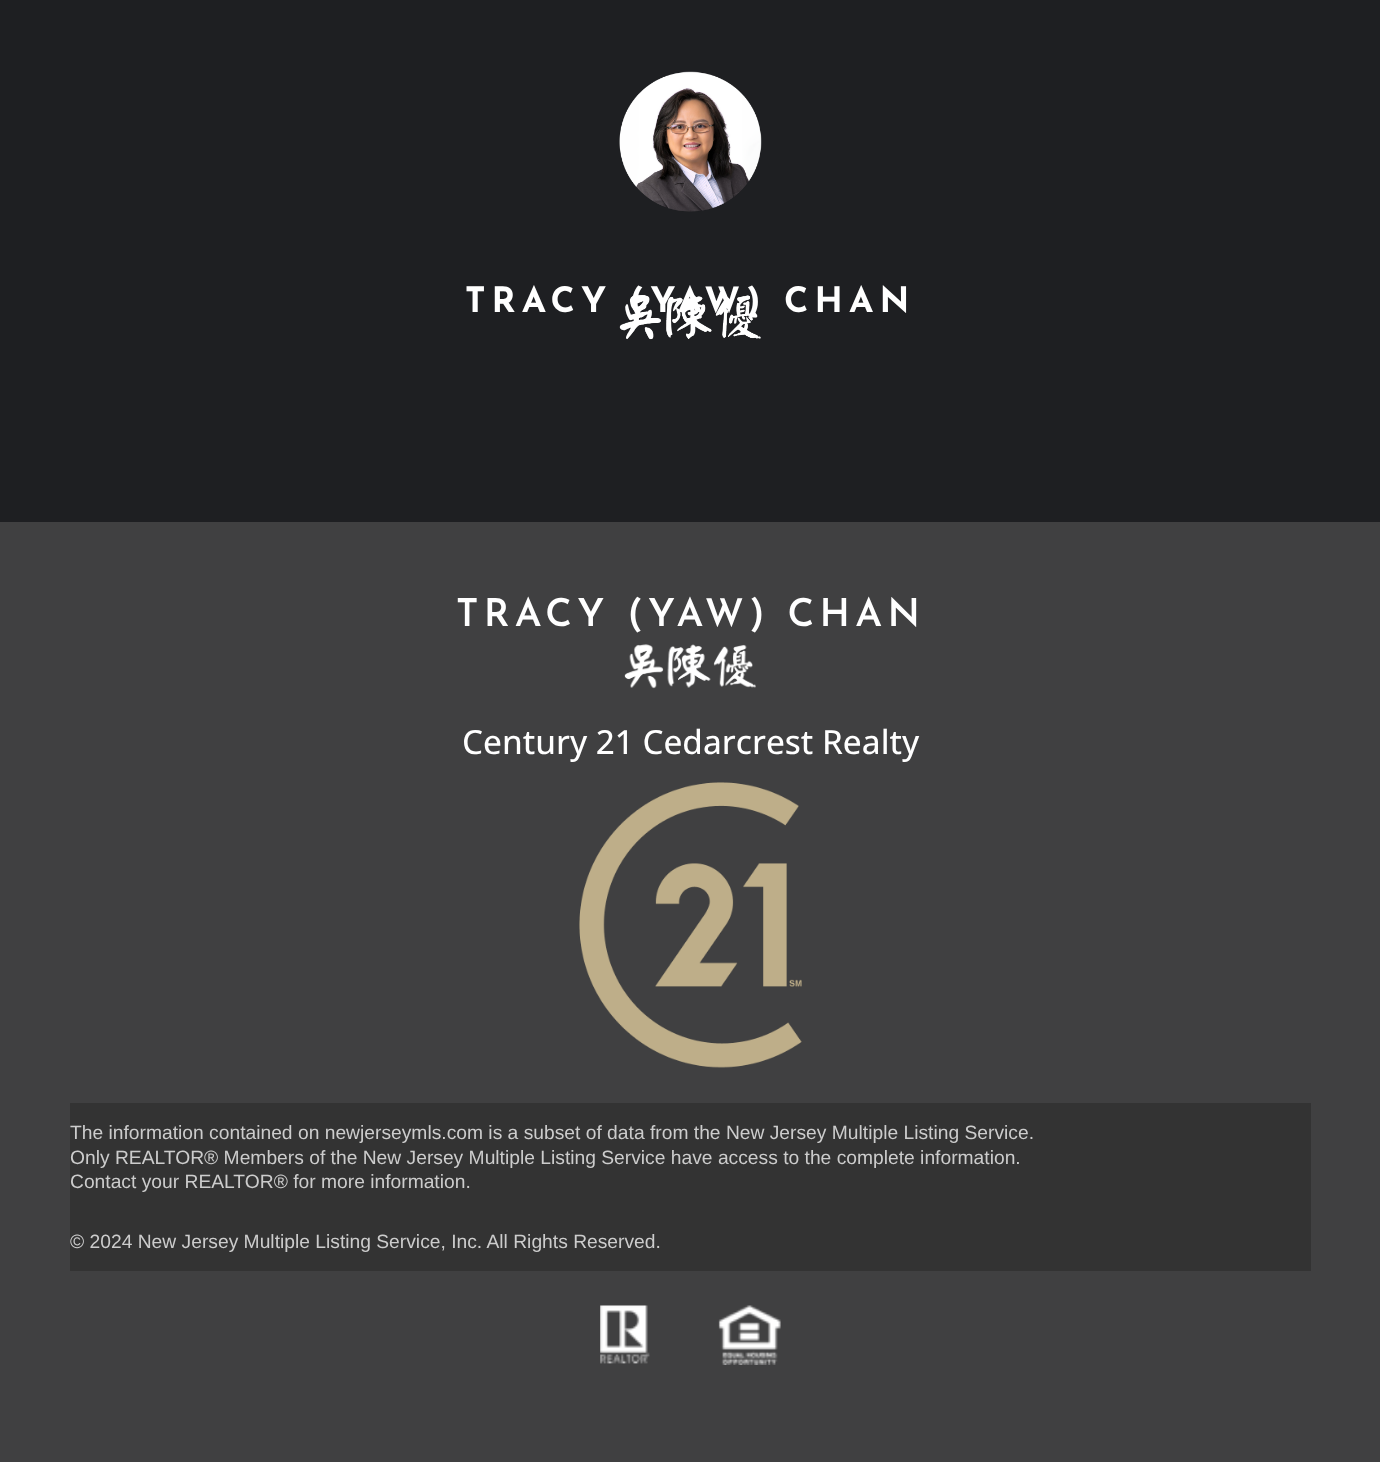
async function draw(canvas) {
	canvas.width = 1380;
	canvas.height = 1462;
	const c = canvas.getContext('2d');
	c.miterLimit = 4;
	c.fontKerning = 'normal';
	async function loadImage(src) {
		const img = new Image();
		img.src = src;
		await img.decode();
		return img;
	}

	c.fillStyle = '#404041';
	c.fillRect(0, 0, 1380, 1462);
	c.fillStyle = '#1e1f22';
	c.fillRect(0, 0, 1380, 522);
	c.drawImage(await loadImage('img1.png'), 619, 71, 143, 141);
	c.letterSpacing = '6.1px';
	c.font = 'bold 35px Josefin Sans';
	c.fillStyle = '#fff';
	c.fillText('TRACY (YAW) CHAN', 465, 312);
	c.drawImage(await loadImage('img2.png'), 619, 295, 142, 45);
	c.letterSpacing = '5.25px';
	c.font = '600 38.5px Josefin Sans';
	c.fillText('TRACY (YAW) CHAN', 456, 626);
	c.drawImage(await loadImage('img3.png'), 624, 644, 132, 45);
	c.letterSpacing = '0px';
	c.font = '500 33.25px Open Sans';
	c.fillText('Century 21 Cedarcrest Realty', 462, 754);
	c.drawImage(await loadImage('img4.png'), 579, 782, 223, 286);
	c.fillStyle = '#333';
	c.fillRect(70, 1103, 1241, 168);
	c.font = '19.25px Liberation Sans';
	c.fillStyle = '#ccc';
	for (const [text, x, y] of [
		['The information contained on newjerseymls.com is a subset of data from the New Jersey Multiple Listing Service.', 70, 1139],
		['Only REALTOR® Members of the New Jersey Multiple Listing Service have access to the complete information.', 70, 1164],
		['Contact your REALTOR® for more information.', 70, 1188],
		['© 2024 New Jersey Multiple Listing Service, Inc. All Rights Reserved.', 70, 1248],
	]) {
		c.fillText(text, x, y);
	}
	c.drawImage(await loadImage('img5.png'), 600, 1305, 181, 60);
}

draw(document.querySelector('canvas'));
